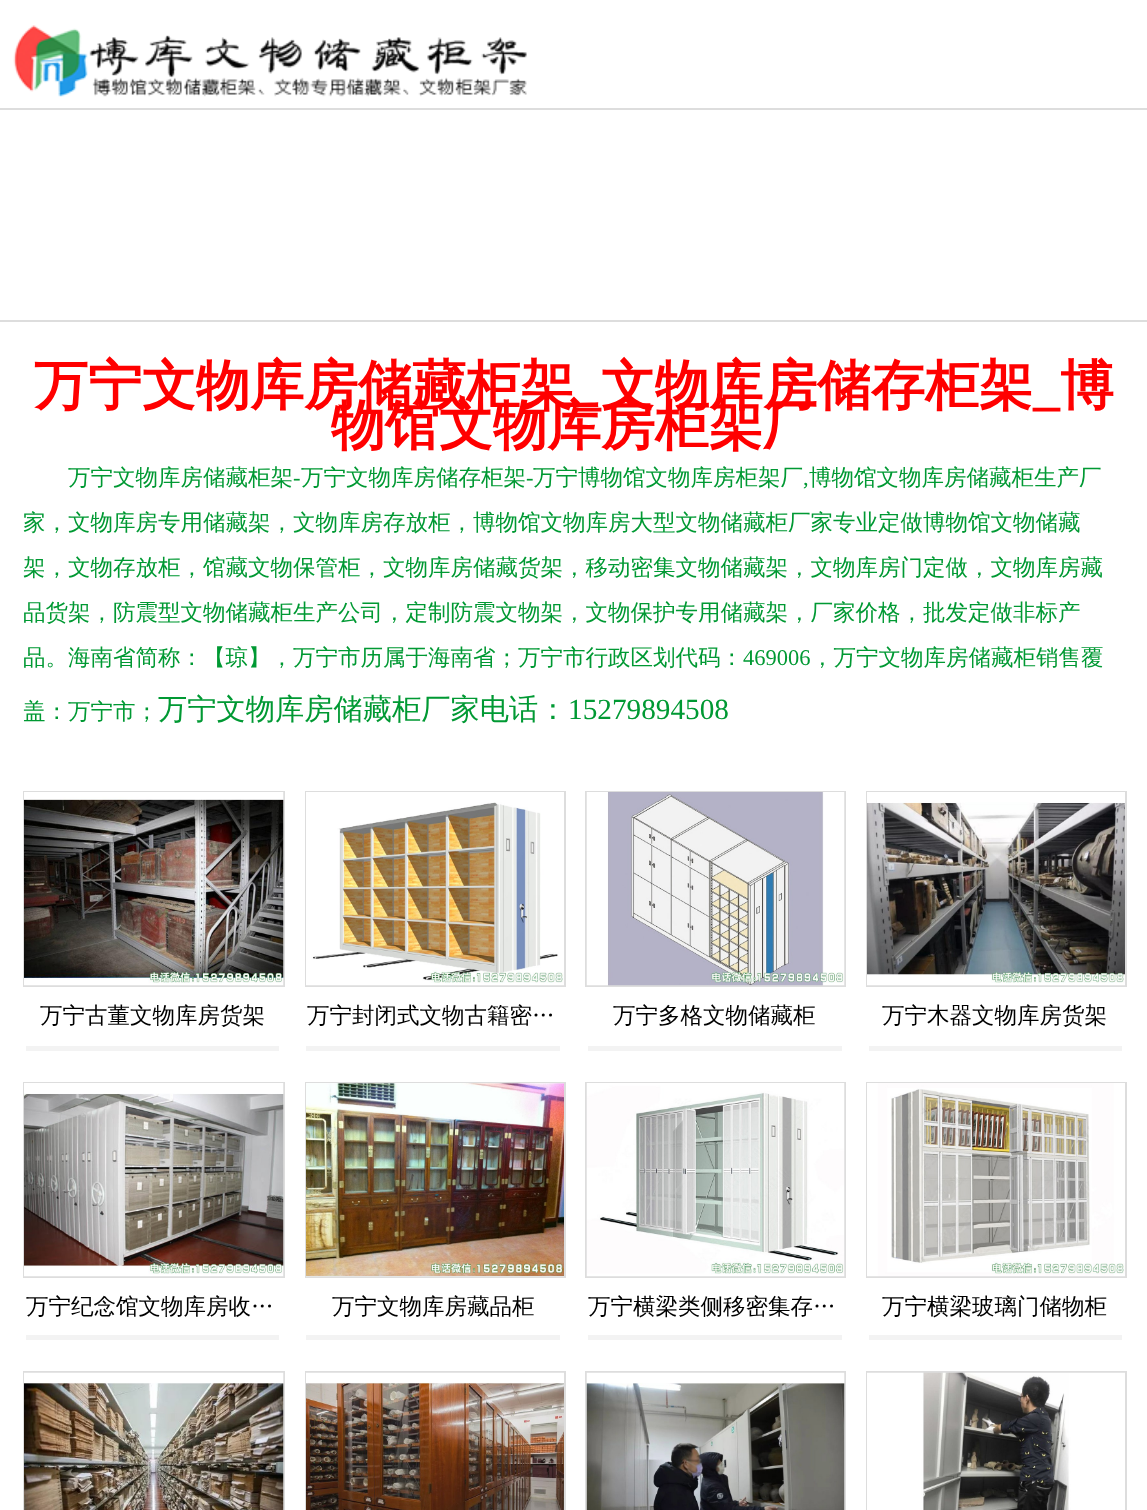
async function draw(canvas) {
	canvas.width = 1147;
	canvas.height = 1510;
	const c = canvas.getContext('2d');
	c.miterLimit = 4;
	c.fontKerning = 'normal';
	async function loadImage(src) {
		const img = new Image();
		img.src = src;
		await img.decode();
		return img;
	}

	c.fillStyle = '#fff';
	c.fillRect(0, 0, 1147, 1510);
	c.drawImage(await loadImage('img1.png'), 13, 25, 514, 72);
	c.fillStyle = '#ddd';
	c.fillRect(0, 108, 1147, 2);
	c.fillRect(0, 320, 1147, 2);
	c.font = 'bold 54px WenQuanYi Zen Hei';
	c.fillStyle = '#f00';
	c.fillText('万宁文物库房储藏柜架', 34, 404);
	c.fillText('文物库房储存柜架', 601, 404);
	c.font = 'bold 54px Liberation Serif';
	c.fillText('_', 1033, 404);
	c.font = 'bold 54px WenQuanYi Zen Hei';
	c.fillText('博', 1060, 404);
	c.font = 'bold 54px Liberation Serif';
	c.fillText('_', 574, 404);
	c.font = 'bold 54px WenQuanYi Zen Hei';
	c.fillText('物馆文物库房柜架厂', 331, 444);
	c.font = '500 22.5px WenQuanYi Zen Hei';
	c.fillStyle = '#093';
	c.fillText('万宁文物库房储藏柜架', 68, 485);
	c.font = '22.5px Liberation Serif';
	c.fillText('-', 293, 485);
	c.font = '500 22.5px WenQuanYi Zen Hei';
	c.fillText('万宁文物库房储存柜架', 301, 485);
	c.font = '22.5px Liberation Serif';
	c.fillText('-', 526, 485);
	c.font = '500 22.5px WenQuanYi Zen Hei';
	c.fillText('万宁博物馆文物库房柜架厂', 533, 485);
	c.fillText('博物馆文物库房储藏柜生产厂', 809, 485);
	c.font = '22.5px Liberation Serif';
	c.fillText(',', 803, 485);
	c.font = '500 22.5px WenQuanYi Zen Hei';
	for (const [text, x, y] of [
		['家，文物库房专用储藏架，文物库房存放柜，博物馆文物库房大型文物储藏柜厂家专业定做博物馆文物储藏', 23, 530],
		['架，文物存放柜，馆藏文物保管柜，文物库房储藏货架，移动密集文物储藏架，文物库房门定做，文物库房藏', 23, 575],
		['品货架，防震型文物储藏柜生产公司，定制防震文物架，文物保护专用储藏架，厂家价格，批发定做非标产', 23, 620],
		['品。海南省简称：【琼】，万宁市历属于海南省；万宁市行政区划代码：', 23, 665],
	]) {
		c.fillText(text, x, y);
	}
	c.font = '22.5px Liberation Serif';
	c.fillText('469006', 743, 665);
	c.font = '500 22.5px WenQuanYi Zen Hei';
	c.fillText('，万宁文物库房储藏柜销售覆', 811, 665);
	c.fillText('盖：万宁市；', 23, 719);
	c.font = '500 29.25px WenQuanYi Zen Hei';
	c.fillText('万宁文物库房储藏柜厂家电话：', 158, 719);
	c.font = '29.25px Liberation Serif';
	c.fillText('15279894508', 568, 719);
	c.strokeStyle = '#ddd';
	c.lineWidth = 2;
	c.strokeRect(24, 792, 260, 194);
	c.drawImage(await loadImage('img2.png'), 24, 792, 260, 194);
	c.fillStyle = '#f3f3f3';
	c.fillRect(26, 1046, 253, 5);
	c.font = '500 22.5px WenQuanYi Zen Hei';
	c.fillStyle = '#000';
	c.fillText('万宁古董文物库房货架', 40, 1023);
	c.strokeRect(306, 792, 259, 194);
	c.drawImage(await loadImage('img3.png'), 306, 792, 258, 194);
	c.fillStyle = '#f3f3f3';
	c.fillRect(306, 1046, 254, 5);
	c.fillStyle = '#000';
	c.fillText('万宁封闭式文物古籍密…', 307, 1023);
	c.strokeRect(586, 792, 259, 194);
	c.drawImage(await loadImage('img4.png'), 586, 792, 259, 194);
	c.fillStyle = '#f3f3f3';
	c.fillRect(588, 1046, 254, 5);
	c.fillStyle = '#000';
	c.fillText('万宁多格文物储藏柜', 613, 1023);
	c.strokeRect(867, 792, 259, 194);
	c.drawImage(await loadImage('img5.png'), 867, 792, 258, 194);
	c.fillStyle = '#f3f3f3';
	c.fillRect(869, 1046, 253, 5);
	c.fillStyle = '#000';
	c.fillText('万宁木器文物库房货架', 882, 1023);
	c.strokeRect(24, 1083, 260, 194);
	c.drawImage(await loadImage('img6.png'), 24, 1083, 260, 194);
	c.fillStyle = '#f3f3f3';
	c.fillRect(26, 1335, 253, 5);
	c.fillStyle = '#000';
	c.fillText('万宁纪念馆文物库房收…', 26, 1314);
	c.strokeRect(306, 1083, 259, 194);
	c.drawImage(await loadImage('img7.png'), 306, 1083, 258, 194);
	c.fillStyle = '#f3f3f3';
	c.fillRect(306, 1335, 254, 5);
	c.fillStyle = '#000';
	c.fillText('万宁文物库房藏品柜', 332, 1314);
	c.strokeRect(586, 1083, 259, 194);
	c.drawImage(await loadImage('img8.png'), 586, 1083, 259, 194);
	c.fillStyle = '#f3f3f3';
	c.fillRect(588, 1335, 254, 5);
	c.fillStyle = '#000';
	c.fillText('万宁横梁类侧移密集存…', 588, 1314);
	c.strokeRect(867, 1083, 259, 194);
	c.drawImage(await loadImage('img9.png'), 867, 1083, 258, 194);
	c.fillStyle = '#f3f3f3';
	c.fillRect(869, 1335, 253, 5);
	c.fillStyle = '#000';
	c.fillText('万宁横梁玻璃门储物柜', 882, 1314);
	c.strokeRect(24, 1372, 260, 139);
	c.drawImage(await loadImage('img10.png'), 24, 1372, 260, 138);
	c.strokeRect(306, 1372, 259, 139);
	c.drawImage(await loadImage('img11.png'), 306, 1372, 258, 138);
	c.strokeRect(586, 1372, 259, 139);
	c.drawImage(await loadImage('img12.png'), 586, 1372, 259, 138);
	c.strokeRect(867, 1372, 259, 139);
	c.drawImage(await loadImage('img13.png'), 867, 1372, 258, 138);
}

draw(document.querySelector('canvas'));
